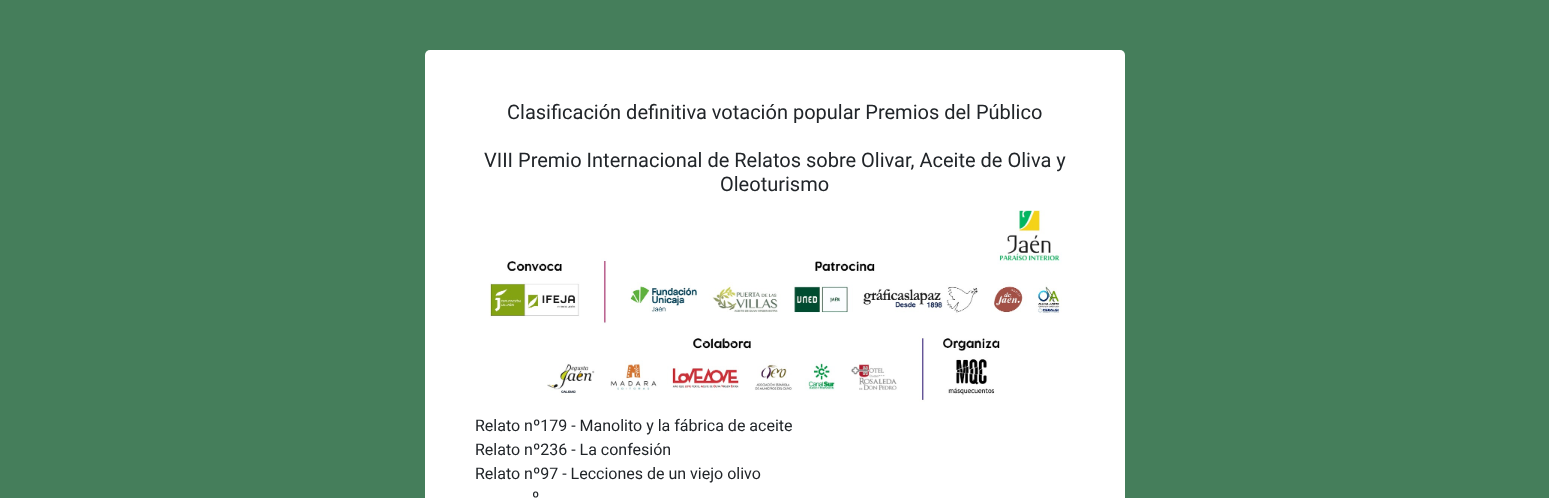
async function draw(canvas) {
	canvas.width = 1549;
	canvas.height = 498;
	const c = canvas.getContext('2d');
	c.miterLimit = 4;
	c.fontKerning = 'normal';
	async function loadImage(src) {
		const img = new Image();
		img.src = src;
		await img.decode();
		return img;
	}

	c.fillStyle = '#457e5b';
	c.fillRect(0, 0, 1549, 498);
	c.fillStyle = '#fff';
	c.beginPath();
	c.roundRect(425, 50, 700, 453, 5);
	c.fill();
	c.font = '20px Roboto';
	c.fillStyle = '#212529';
	for (const [text, x, y] of [
		['Clasificación definitiva votación popular Premios del Público', 507, 119],
		['VIII Premio Internacional de Relatos sobre Olivar, Aceite de Oliva y', 484, 167],
		['Oleoturismo', 720, 191],
	]) {
		c.fillText(text, x, y);
	}
	c.drawImage(await loadImage('img1.png'), 489, 210, 573, 192);
	c.font = '16px Roboto';
	for (const [text, x, y] of [
		['Relato nº179 - Manolito y la fábrica de aceite', 475, 431],
		['Relato nº236 - La confesión', 475, 455],
		['Relato nº97 - Lecciones de un viejo olivo', 475, 479],
		['º', 532, 503],
	]) {
		c.fillText(text, x, y);
	}
}

draw(document.querySelector('canvas'));
